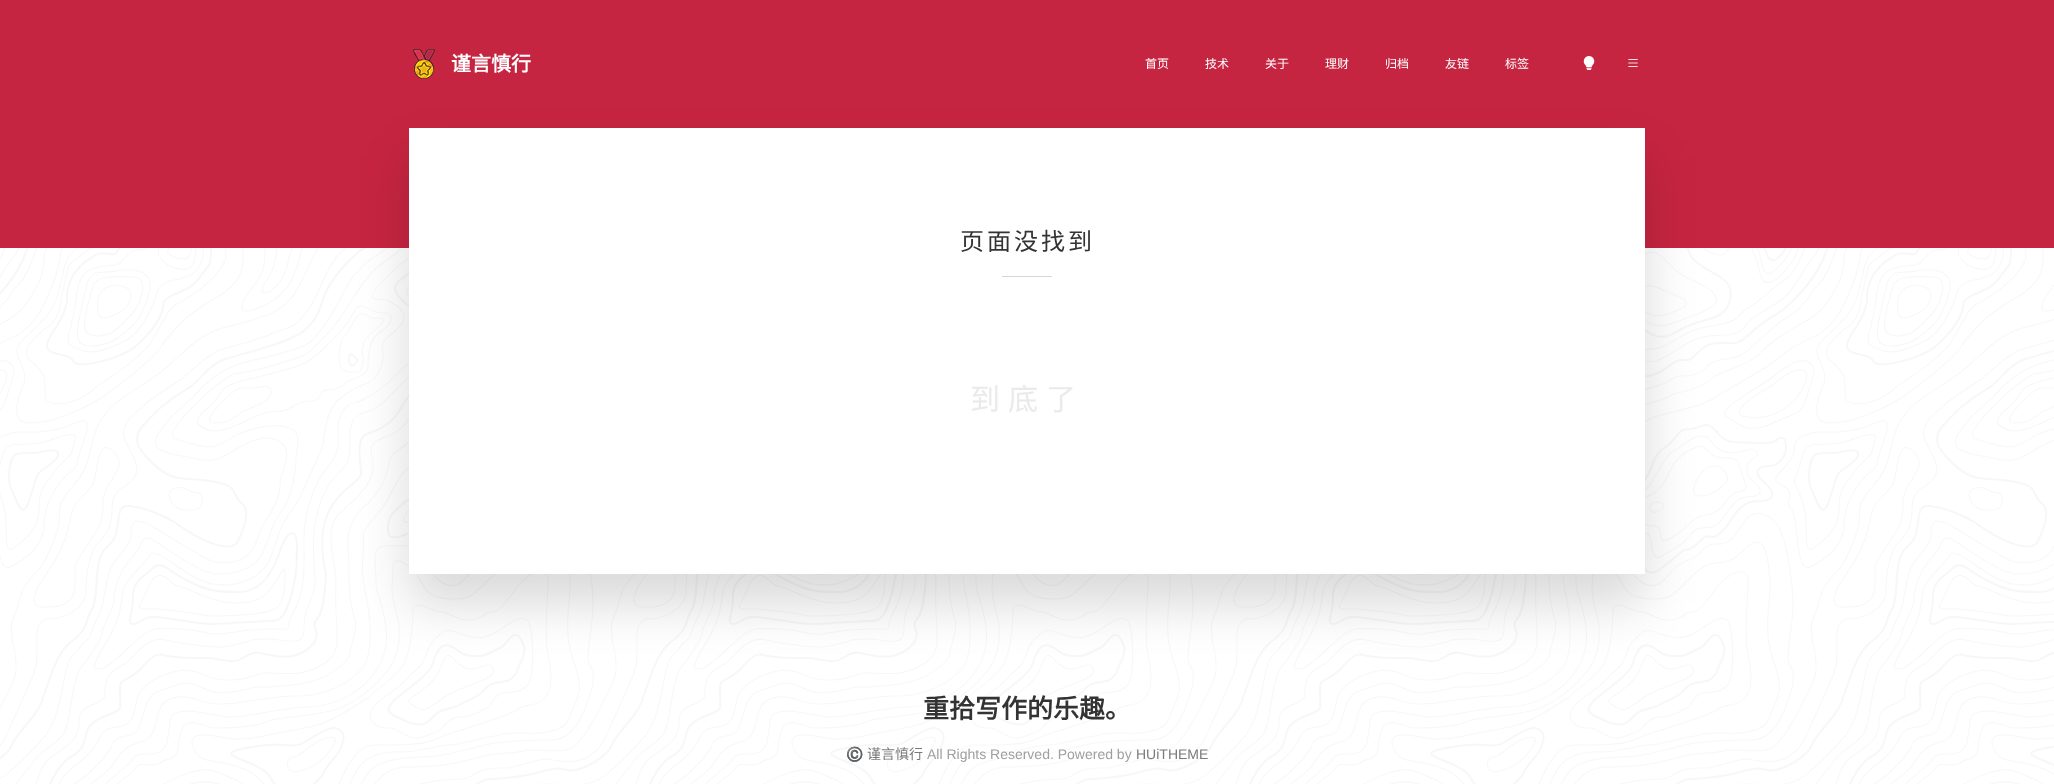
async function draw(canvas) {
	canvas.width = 2054;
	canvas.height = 784;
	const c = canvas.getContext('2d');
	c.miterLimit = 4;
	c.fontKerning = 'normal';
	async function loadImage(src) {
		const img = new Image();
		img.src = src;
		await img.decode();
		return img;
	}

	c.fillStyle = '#fff';
	c.fillRect(0, 0, 2054, 784);
	c.fillStyle = '#c62541';
	c.fillRect(0, 0, 2054, 248);
	c.drawImage(await loadImage('img1.png'), 413, 49, 22, 30);
	c.font = 'bold 20px Noto Sans CJK SC';
	c.fillStyle = '#fff';
	c.fillText('谨言慎行', 451, 71);
	c.font = '12px Noto Sans CJK SC';
	for (const [text, x, y] of [
		['首页', 1145, 68],
		['技术', 1205, 68],
		['关于', 1265, 68],
		['理财', 1325, 68],
		['归档', 1385, 68],
		['友链', 1445, 68],
		['标签', 1505, 68],
	]) {
		c.fillText(text, x, y);
	}
	c.drawImage(await loadImage('img2.png'), 1583, 56, 12, 14);
	c.drawImage(await loadImage('img3.png'), 1628, 59, 10, 8);
	c.drawImage(await loadImage('img4.png'), 0, 248, 2054, 446);
	c.fillStyle = '#01010126';
	c.filter = 'blur(25px)';
	c.beginPath();
	c.rect(409, 158, 1236, 446);
	c.fill();
	c.filter = 'none';
	c.fillStyle = '#fff';
	c.fillRect(409, 128, 1236, 446);
	c.letterSpacing = '3px';
	c.font = '24px Noto Sans CJK SC';
	c.fillStyle = '#333';
	c.fillText('页面没找到', 960, 250);
	c.fillStyle = '#d6d6d6';
	c.fillRect(1002, 276, 50, 1);
	c.letterSpacing = '8px';
	c.font = '30px Noto Sans CJK SC';
	c.fillStyle = '#eaeaea';
	c.fillText('到底了', 970, 410);
	c.drawImage(await loadImage('img5.png'), 0, 694, 2054, 90);
	c.letterSpacing = '0px';
	c.font = 'bold 26px Noto Sans CJK SC';
	c.fillStyle = '#333';
	c.fillText('重拾写作的乐趣。', 923, 718);
	c.font = '14px Noto Color Emoji';
	c.fillStyle = '#9f9f9f';
	c.fillText('©️', 846, 759);
	c.font = '14px Noto Sans CJK SC';
	c.fillStyle = '#7a7a7a';
	c.fillText('谨言慎行', 867, 759);
	c.font = '14px Liberation Sans';
	c.fillStyle = '#9f9f9f';
	c.fillText('All Rights Reserved. Powered by', 927, 759);
	c.fillStyle = '#7a7a7a';
	c.fillText('HUiTHEME', 1136, 759);
}

draw(document.querySelector('canvas'));
